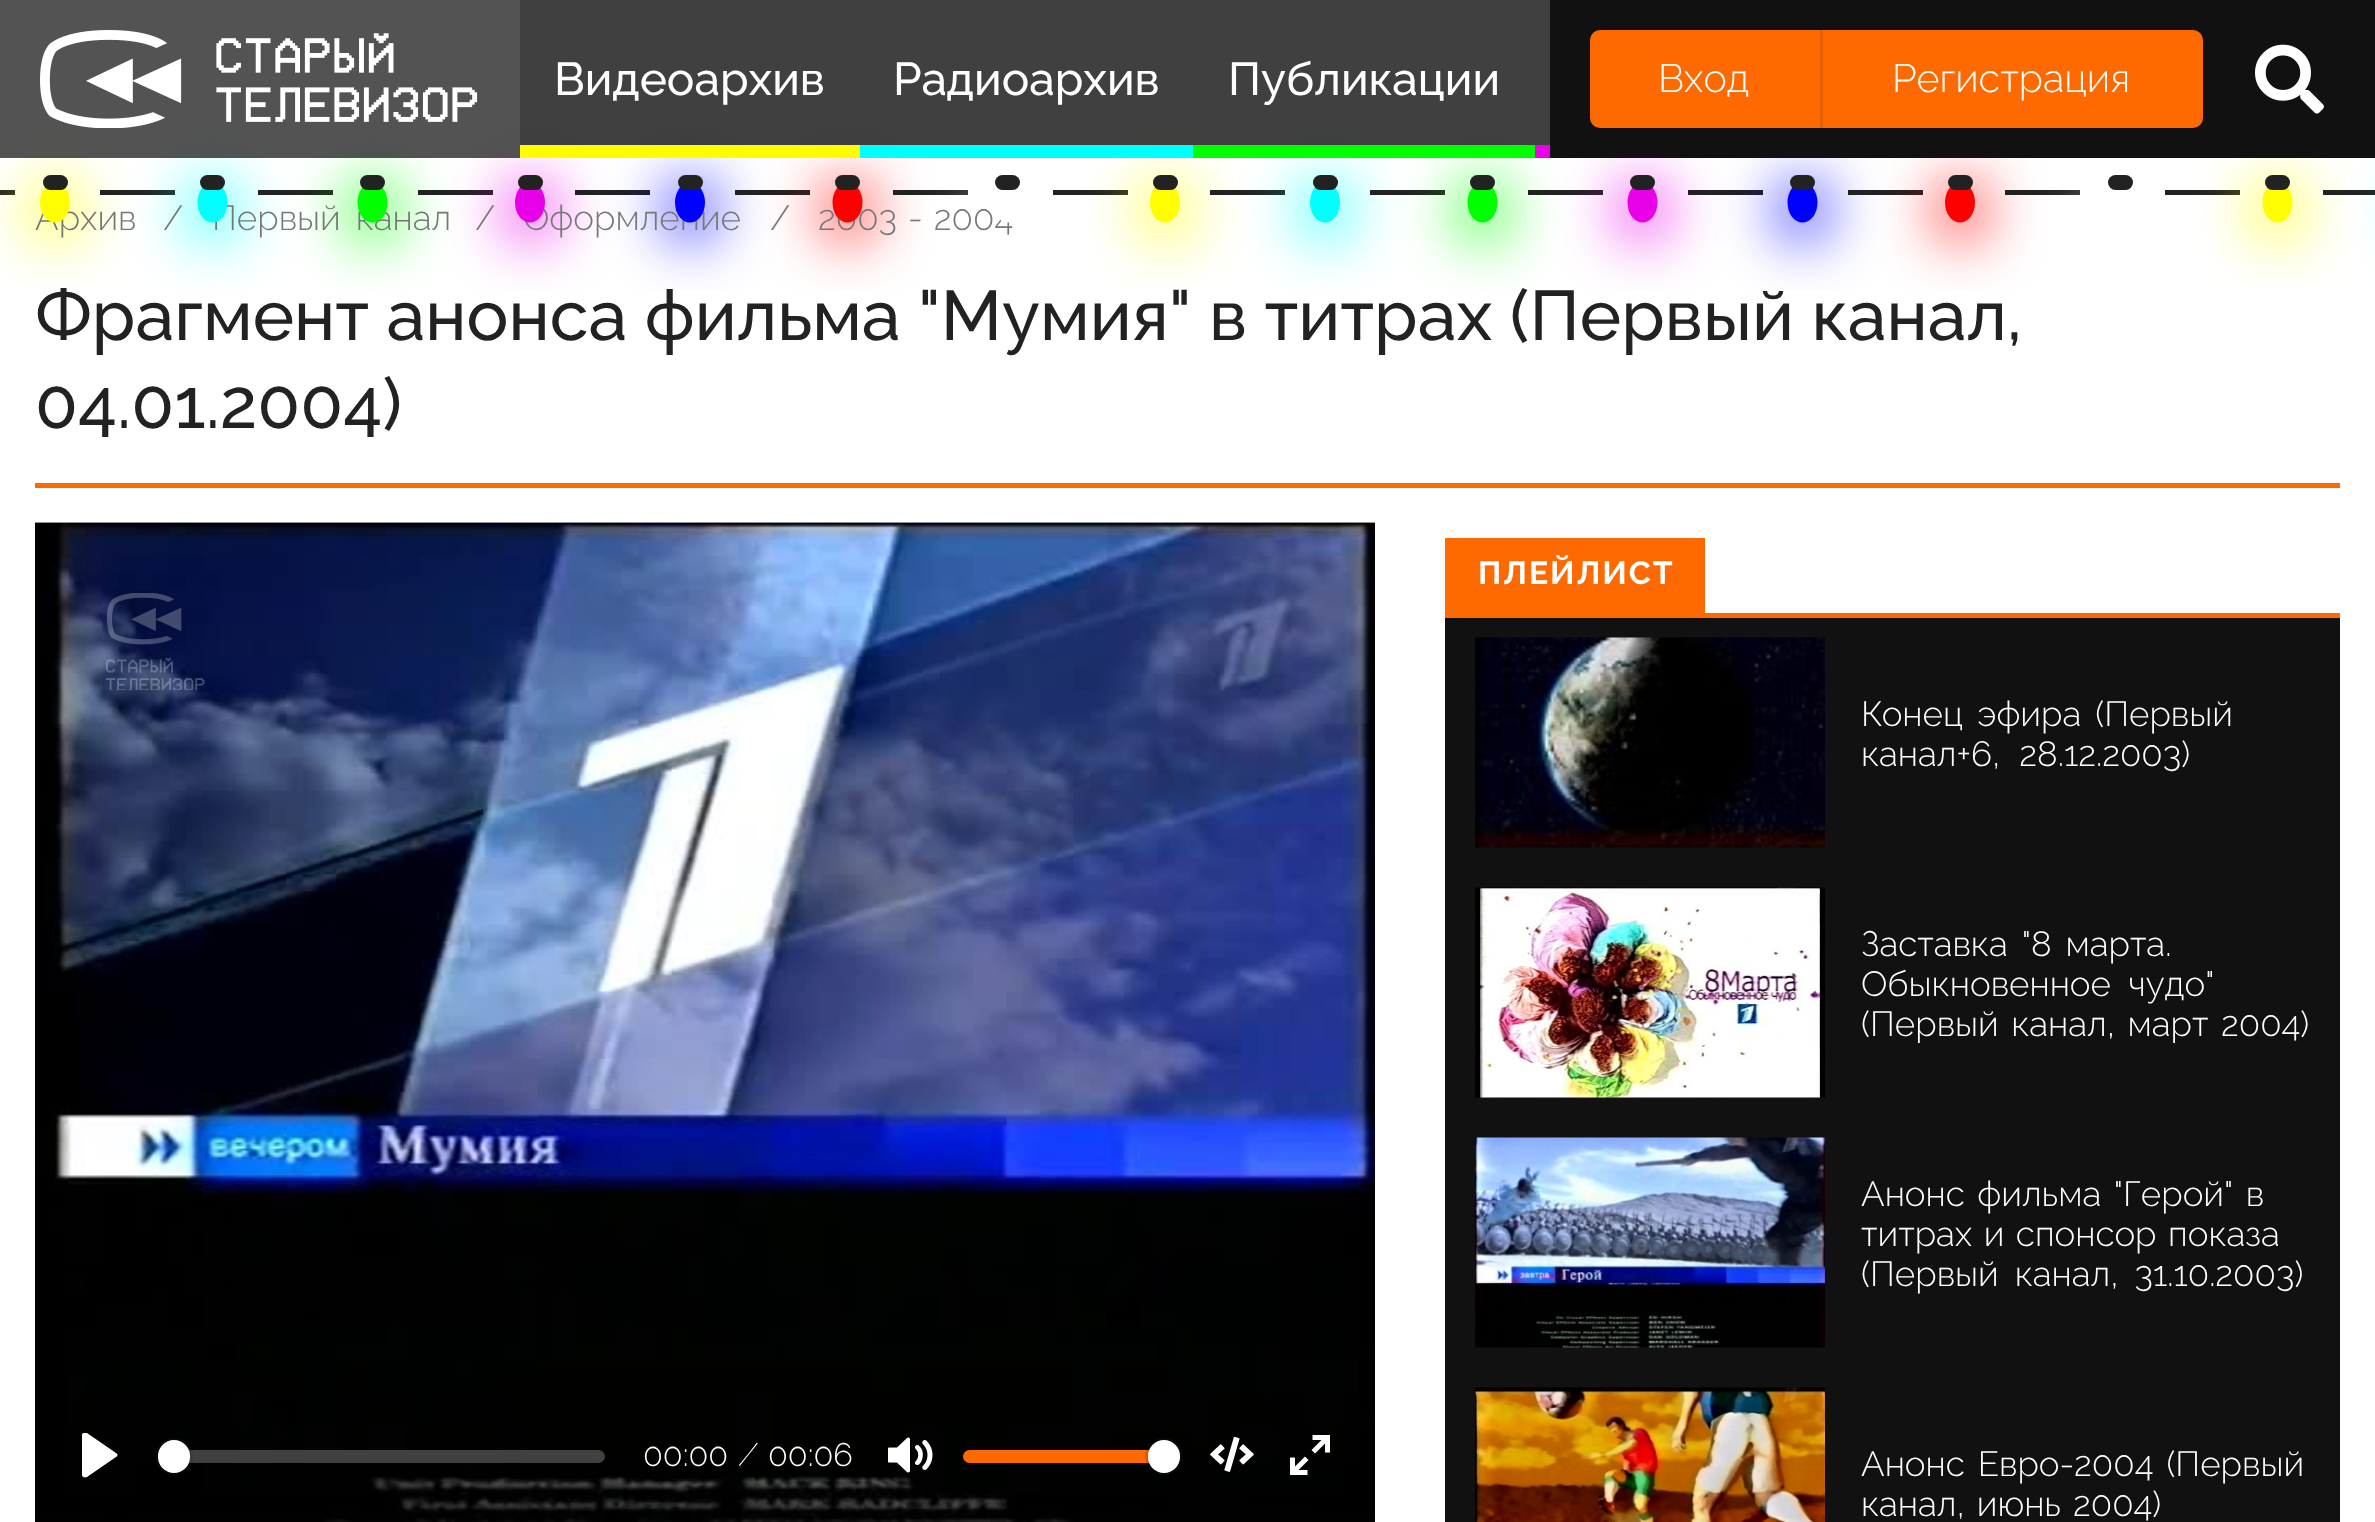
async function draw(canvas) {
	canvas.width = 2375;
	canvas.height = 1522;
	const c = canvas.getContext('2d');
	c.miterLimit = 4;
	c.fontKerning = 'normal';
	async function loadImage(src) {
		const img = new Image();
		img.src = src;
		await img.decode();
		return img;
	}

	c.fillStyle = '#fff';
	c.fillRect(0, 0, 2375, 1522);
	c.fillStyle = '#222';
	c.fillRect(0, 190, 15, 5);
	c.save();
	c.beginPath();
	c.rect(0, 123, 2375, 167);
	c.clip();
	c.fillStyle = '#fffd00';
	c.filter = 'blur(30px)';
	c.beginPath();
	c.roundRect(33, 183, 45, 55, 22.5);
	c.fill();
	c.filter = 'none';
	c.restore();
	c.fillRect(100, 190, 75, 5);
	c.save();
	c.beginPath();
	c.rect(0, 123, 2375, 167);
	c.clip();
	c.fillStyle = '#00fffd';
	c.filter = 'blur(30px)';
	c.beginPath();
	c.roundRect(190, 183, 45, 55, 22.5);
	c.fill();
	c.filter = 'none';
	c.restore();
	c.fillRect(258, 190, 75, 5);
	c.save();
	c.beginPath();
	c.rect(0, 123, 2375, 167);
	c.clip();
	c.fillStyle = '#0f0';
	c.filter = 'blur(30px)';
	c.beginPath();
	c.roundRect(350, 183, 45, 55, 22.5);
	c.fill();
	c.filter = 'none';
	c.restore();
	c.fillRect(418, 190, 75, 5);
	c.save();
	c.beginPath();
	c.rect(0, 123, 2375, 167);
	c.clip();
	c.fillStyle = '#e700e8';
	c.filter = 'blur(30px)';
	c.beginPath();
	c.roundRect(508, 183, 45, 55, 22.5);
	c.fill();
	c.filter = 'none';
	c.restore();
	c.fillRect(575, 190, 75, 5);
	c.save();
	c.beginPath();
	c.rect(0, 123, 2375, 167);
	c.clip();
	c.fillStyle = '#00f';
	c.filter = 'blur(30px)';
	c.beginPath();
	c.roundRect(668, 183, 45, 55, 22.5);
	c.fill();
	c.filter = 'none';
	c.restore();
	c.fillRect(735, 190, 75, 5);
	c.save();
	c.beginPath();
	c.rect(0, 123, 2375, 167);
	c.clip();
	c.fillStyle = '#fd0000';
	c.filter = 'blur(30px)';
	c.beginPath();
	c.roundRect(825, 183, 45, 55, 22.5);
	c.fill();
	c.filter = 'none';
	c.restore();
	c.fillRect(893, 190, 75, 5);
	c.save();
	c.beginPath();
	c.rect(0, 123, 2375, 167);
	c.clip();
	c.fillStyle = '#fff';
	c.filter = 'blur(30px)';
	c.beginPath();
	c.roundRect(985, 183, 45, 55, 22.5);
	c.fill();
	c.filter = 'none';
	c.restore();
	c.fillRect(1053, 190, 75, 5);
	c.save();
	c.beginPath();
	c.rect(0, 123, 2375, 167);
	c.clip();
	c.fillStyle = '#fffd00';
	c.filter = 'blur(30px)';
	c.beginPath();
	c.roundRect(1143, 183, 45, 55, 22.5);
	c.fill();
	c.filter = 'none';
	c.restore();
	c.fillRect(1210, 190, 75, 5);
	c.save();
	c.beginPath();
	c.rect(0, 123, 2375, 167);
	c.clip();
	c.fillStyle = '#00fffd';
	c.filter = 'blur(30px)';
	c.beginPath();
	c.roundRect(1303, 183, 45, 55, 22.5);
	c.fill();
	c.filter = 'none';
	c.restore();
	c.fillRect(1370, 190, 75, 5);
	c.save();
	c.beginPath();
	c.rect(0, 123, 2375, 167);
	c.clip();
	c.fillStyle = '#0f0';
	c.filter = 'blur(30px)';
	c.beginPath();
	c.roundRect(1460, 183, 45, 55, 22.5);
	c.fill();
	c.filter = 'none';
	c.restore();
	c.fillRect(1528, 190, 75, 5);
	c.save();
	c.beginPath();
	c.rect(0, 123, 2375, 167);
	c.clip();
	c.fillStyle = '#e700e8';
	c.filter = 'blur(30px)';
	c.beginPath();
	c.roundRect(1620, 183, 45, 55, 22.5);
	c.fill();
	c.filter = 'none';
	c.restore();
	c.fillStyle = '#000000bf';
	c.fillRect(0, 0, 1550, 158);
	c.fillStyle = '#ffffff1a';
	c.fillRect(0, 0, 520, 158);
	c.drawImage(await loadImage('img1.png'), 40, 30, 438, 98);
	c.font = '500 46px Raleway';
	c.fillStyle = '#fff';
	c.fillText('Видеоархив', 554, 95);
	c.fillStyle = '#fffd00';
	c.fillRect(520, 145, 340, 13);
	c.fillStyle = '#fff';
	c.fillText('Радиоархив', 893, 95);
	c.fillStyle = '#00fffd';
	c.fillRect(860, 145, 333, 13);
	c.fillStyle = '#fff';
	c.fillText('Публикации', 1228, 95);
	for (const [x, y, w, h, color] of [
		[1193, 145, 342, 13, '#0f0'],
		[1535, 145, 15, 13, '#e702e8'],
		[1688, 190, 75, 5, '#222'],
	]) {
		c.fillStyle = color;
		c.fillRect(x, y, w, h);
	}
	c.save();
	c.beginPath();
	c.rect(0, 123, 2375, 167);
	c.clip();
	c.fillStyle = '#00f';
	c.filter = 'blur(30px)';
	c.beginPath();
	c.roundRect(1780, 183, 45, 55, 22.5);
	c.fill();
	c.filter = 'none';
	c.restore();
	c.fillRect(1848, 190, 75, 5);
	c.save();
	c.beginPath();
	c.rect(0, 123, 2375, 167);
	c.clip();
	c.fillStyle = '#fd0000';
	c.filter = 'blur(30px)';
	c.beginPath();
	c.roundRect(1938, 183, 45, 55, 22.5);
	c.fill();
	c.filter = 'none';
	c.restore();
	c.fillRect(2005, 190, 75, 5);
	c.save();
	c.beginPath();
	c.rect(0, 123, 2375, 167);
	c.clip();
	c.beginPath();
	c.moveTo(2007, 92);
	c.lineTo(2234, 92);
	c.lineTo(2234, 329);
	c.lineTo(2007, 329);
	c.closePath();
	c.moveTo(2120, 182.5);
	c.bezierCurveTo(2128.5, 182.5, 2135, 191.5, 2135, 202.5);
	c.bezierCurveTo(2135, 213.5, 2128.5, 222.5, 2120, 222.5);
	c.bezierCurveTo(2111.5, 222.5, 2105, 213.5, 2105, 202.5);
	c.bezierCurveTo(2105, 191.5, 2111.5, 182.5, 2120, 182.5);
	c.closePath();
	c.clip('evenodd');
	c.fillStyle = '#fff';
	c.filter = 'blur(30px)';
	c.beginPath();
	c.roundRect(2098, 183, 45, 55, 22.5);
	c.fill();
	c.filter = 'none';
	c.restore();
	c.fillRect(2165, 190, 75, 5);
	c.save();
	c.beginPath();
	c.rect(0, 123, 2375, 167);
	c.clip();
	c.fillStyle = '#fffd00';
	c.filter = 'blur(30px)';
	c.beginPath();
	c.roundRect(2255, 183, 45, 55, 22.5);
	c.fill();
	c.filter = 'none';
	c.restore();
	c.fillRect(2323, 190, 52, 5);
	c.fillStyle = '#00fffd';
	c.filter = 'blur(30px)';
	c.beginPath();
	c.roundRect(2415, 183, 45, 55, 22.5);
	c.fill();
	c.filter = 'none';
	c.fillStyle = '#111';
	c.fillRect(1550, 0, 825, 158);
	c.fillStyle = '#ff6a00';
	c.beginPath();
	c.roundRect(1590, 30, 233, 98, [10, 0, 0, 10]);
	c.fill();
	c.fillStyle = '#e65f00';
	c.fillRect(1820, 30, 3, 98);
	c.font = '300 39.5px Raleway';
	c.fillStyle = '#fff';
	c.fillText('Вход', 1658, 92);
	c.fillStyle = '#ff6a00';
	c.beginPath();
	c.roundRect(1823, 30, 380, 98, [0, 10, 10, 0]);
	c.fill();
	c.fillStyle = '#fff';
	c.fillText('Регистрация', 1892, 92);
	c.drawImage(await loadImage('img2.png'), 2255, 44, 69, 70);
	c.font = '300 35px Raleway';
	c.fillStyle = '#777';
	c.fillText('Архив', 35, 230);
	c.fillStyle = '#fffd00';
	c.beginPath();
	c.ellipse(55, 202.5, 15, 20, 0, 0, 2 * Math.PI);
	c.fill();
	c.fillStyle = '#222';
	c.beginPath();
	c.roundRect(43, 175, 25, 15, 7.5);
	c.fill();
	c.wordSpacing = '6px';
	c.fillStyle = '#777';
	c.fillText('Первый канал', 212, 230);
	c.fillStyle = '#00fffd';
	c.beginPath();
	c.ellipse(212.5, 202.5, 15, 20, 0, 0, 2 * Math.PI);
	c.fill();
	c.fillStyle = '#222';
	c.beginPath();
	c.roundRect(200, 175, 25, 15, 7.5);
	c.fill();
	c.fillStyle = '#0f0';
	c.beginPath();
	c.ellipse(372.5, 202.5, 15, 20, 0, 0, 2 * Math.PI);
	c.fill();
	c.fillStyle = '#222';
	c.beginPath();
	c.roundRect(360, 175, 25, 15, 7.5);
	c.fill();
	c.wordSpacing = '0px';
	c.fillStyle = '#777';
	c.fillText('Оформление', 523, 230);
	c.fillStyle = '#e700e8';
	c.beginPath();
	c.ellipse(530, 202.5, 15, 20, 0, 0, 2 * Math.PI);
	c.fill();
	c.fillStyle = '#222';
	c.beginPath();
	c.roundRect(518, 175, 25, 15, 7.5);
	c.fill();
	c.fillStyle = '#00f';
	c.beginPath();
	c.ellipse(690, 202.5, 15, 20, 0, 0, 2 * Math.PI);
	c.fill();
	c.fillStyle = '#222';
	c.beginPath();
	c.roundRect(678, 175, 25, 15, 7.5);
	c.fill();
	c.wordSpacing = '2px';
	c.fillStyle = '#777';
	c.fillText('2003 - 2004', 818, 230);
	c.fillStyle = '#fd0000';
	c.beginPath();
	c.ellipse(847.5, 202.5, 15, 20, 0, 0, 2 * Math.PI);
	c.fill();
	c.fillStyle = '#222';
	c.beginPath();
	c.roundRect(835, 175, 25, 15, 7.5);
	c.fill();
	c.fillStyle = '#fff';
	c.beginPath();
	c.ellipse(1007.5, 202.5, 15, 20, 0, 0, 2 * Math.PI);
	c.fill();
	c.fillStyle = '#222';
	c.beginPath();
	c.roundRect(995, 175, 25, 15, 7.5);
	c.fill();
	c.fillStyle = '#fffd00';
	c.beginPath();
	c.ellipse(1165, 202.5, 15, 20, 0, 0, 2 * Math.PI);
	c.fill();
	c.fillStyle = '#222';
	c.beginPath();
	c.roundRect(1153, 175, 25, 15, 7.5);
	c.fill();
	c.fillStyle = '#00fffd';
	c.beginPath();
	c.ellipse(1325, 202.5, 15, 20, 0, 0, 2 * Math.PI);
	c.fill();
	c.fillStyle = '#222';
	c.beginPath();
	c.roundRect(1313, 175, 25, 15, 7.5);
	c.fill();
	c.fillStyle = '#0f0';
	c.beginPath();
	c.ellipse(1482.5, 202.5, 15, 20, 0, 0, 2 * Math.PI);
	c.fill();
	c.fillStyle = '#222';
	c.beginPath();
	c.roundRect(1470, 175, 25, 15, 7.5);
	c.fill();
	c.fillStyle = '#e700e8';
	c.beginPath();
	c.ellipse(1642.5, 202.5, 15, 20, 0, 0, 2 * Math.PI);
	c.fill();
	c.fillStyle = '#222';
	c.beginPath();
	c.roundRect(1630, 175, 25, 15, 7.5);
	c.fill();
	c.fillStyle = '#00f';
	c.beginPath();
	c.ellipse(1802.5, 202.5, 15, 20, 0, 0, 2 * Math.PI);
	c.fill();
	c.fillStyle = '#222';
	c.beginPath();
	c.roundRect(1790, 175, 25, 15, 7.5);
	c.fill();
	c.fillStyle = '#fd0000';
	c.beginPath();
	c.ellipse(1960, 202.5, 15, 20, 0, 0, 2 * Math.PI);
	c.fill();
	c.fillStyle = '#222';
	c.beginPath();
	c.roundRect(1948, 175, 25, 15, 7.5);
	c.fill();
	c.beginPath();
	c.roundRect(2108, 175, 25, 15, 7.5);
	c.fill();
	c.fillStyle = '#fffd00';
	c.beginPath();
	c.ellipse(2277.5, 202.5, 15, 20, 0, 0, 2 * Math.PI);
	c.fill();
	c.fillStyle = '#222';
	c.beginPath();
	c.roundRect(2265, 175, 25, 15, 7.5);
	c.fill();
	c.wordSpacing = '0px';
	c.fillStyle = '#777';
	for (const [text, x, y] of [
		['/', 163, 230],
		['/', 475, 230],
		['/', 770, 230],
	]) {
		c.fillText(text, x, y);
	}
	c.fillStyle = '#ff6a00';
	c.fillRect(35, 483, 2305, 5);
	c.wordSpacing = '-0.25px';
	c.font = '500 70px Raleway';
	c.fillStyle = '#222';
	c.fillText('Фрагмент анонса фильма "Мумия" в титрах (Первый канал,', 35, 340);
	c.wordSpacing = '0px';
	c.fillText('04.01.2004)', 35, 428);
	c.drawImage(await loadImage('img3.png'), 35, 522, 1340, 1);
	c.drawImage(await loadImage('img4.png'), 35, 522, 1340, 1000);
	c.drawImage(await loadImage('img5.png'), 106, 593, 99, 97);
	c.save();
	c.beginPath();
	c.rect(78, 1433, 45, 45);
	c.clip();
	c.fillStyle = '#fff';
	c.beginPath();
	c.moveTo(116, 1453);
	c.lineTo(87, 1433);
	c.bezierCurveTo(85, 1432, 82, 1433, 82, 1435);
	c.lineTo(82, 1475);
	c.bezierCurveTo(82, 1477, 85, 1478, 87, 1477);
	c.lineTo(116, 1457);
	c.bezierCurveTo(118, 1456, 118, 1454, 116, 1453);
	c.closePath();
	c.fill();
	c.restore();
	c.fillStyle = '#ffffff40';
	c.beginPath();
	c.roundRect(158, 1450, 447, 13, 6.5);
	c.fill();
	c.beginPath();
	c.roundRect(156.5, 1439.5, 35, 34, 17);
	c.strokeStyle = '#23282f33';
	c.lineWidth = 3;
	c.stroke();
	c.fillStyle = '#fff';
	c.beginPath();
	c.roundRect(158, 1440, 32, 33, 16);
	c.fill();
	c.font = '300 32.5px Raleway';
	for (const [text, x, y] of [
		['00:00', 643, 1466],
		['⁄', 746, 1466],
		['00:06', 768, 1466],
	]) {
		c.fillText(text, x, y);
	}
	c.drawImage(await loadImage('img6.png'), 888, 1437, 45, 36);
	c.fillStyle = '#ff6a00';
	c.beginPath();
	c.roundRect(963, 1450, 217, 13, 6.5);
	c.fill();
	c.beginPath();
	c.roundRect(1146.5, 1439.5, 35, 34, 17);
	c.stroke();
	c.fillStyle = '#23282f26';
	c.filter = 'blur(1px)';
	c.beginPath();
	c.roundRect(1148, 1443, 32, 32, 16);
	c.fill();
	c.filter = 'none';
	c.fillStyle = '#fff';
	c.beginPath();
	c.roundRect(1148, 1440, 32, 33, 16);
	c.fill();
	c.drawImage(await loadImage('img7.png'), 1210, 1436, 44, 36);
	c.drawImage(await loadImage('img8.png'), 1290, 1435, 40, 40);
	c.fillStyle = '#ff6a00';
	c.fillRect(1445, 613, 895, 5);
	c.fillRect(1445, 538, 260, 75);
	c.letterSpacing = '2px';
	c.font = 'bold 32px Raleway';
	c.fillStyle = '#fff';
	c.fillText('ПЛЕЙЛИСТ', 1478, 584);
	c.fillStyle = '#111';
	c.fillRect(1445, 618, 895, 904);
	c.drawImage(await loadImage('img9.png'), 1475, 637, 350, 211);
	c.letterSpacing = '0px';
	c.wordSpacing = '5px';
	c.font = '300 35px Raleway';
	c.fillStyle = '#fff';
	c.fillText('Конец эфира (Первый', 1861, 726);
	c.wordSpacing = '10px';
	c.fillText('канал+6, 28.12.2003)', 1861, 766);
	c.drawImage(await loadImage('img10.png'), 1475, 887, 350, 211);
	c.wordSpacing = '5px';
	c.fillText('Заставка "8 марта.', 1861, 956);
	c.wordSpacing = '8px';
	c.fillText('Обыкновенное чудо"', 1861, 996);
	c.save();
	c.beginPath();
	c.rect(1860, 923, 475, 120);
	c.clip();
	c.wordSpacing = '3.5px';
	c.fillText('(Первый канал, март 2004)', 1861, 1036);
	c.restore();
	c.drawImage(await loadImage('img11.png'), 1475, 1137, 350, 211);
	c.wordSpacing = '3.5px';
	c.fillText('Анонс фильма "Герой" в', 1861, 1206);
	c.wordSpacing = '2.5px';
	c.fillText('титрах и спонсор показа', 1861, 1246);
	c.wordSpacing = '7px';
	c.fillText('(Первый канал, 31.10.2003)', 1861, 1286);
	c.drawImage(await loadImage('img12.png'), 1475, 1387, 350, 135);
	c.wordSpacing = '4px';
	c.fillText('Анонс Евро-2004 (Первый', 1861, 1476);
	c.wordSpacing = '3px';
	c.fillText('канал, июнь 2004)', 1861, 1516);
}

draw(document.querySelector('canvas'));
